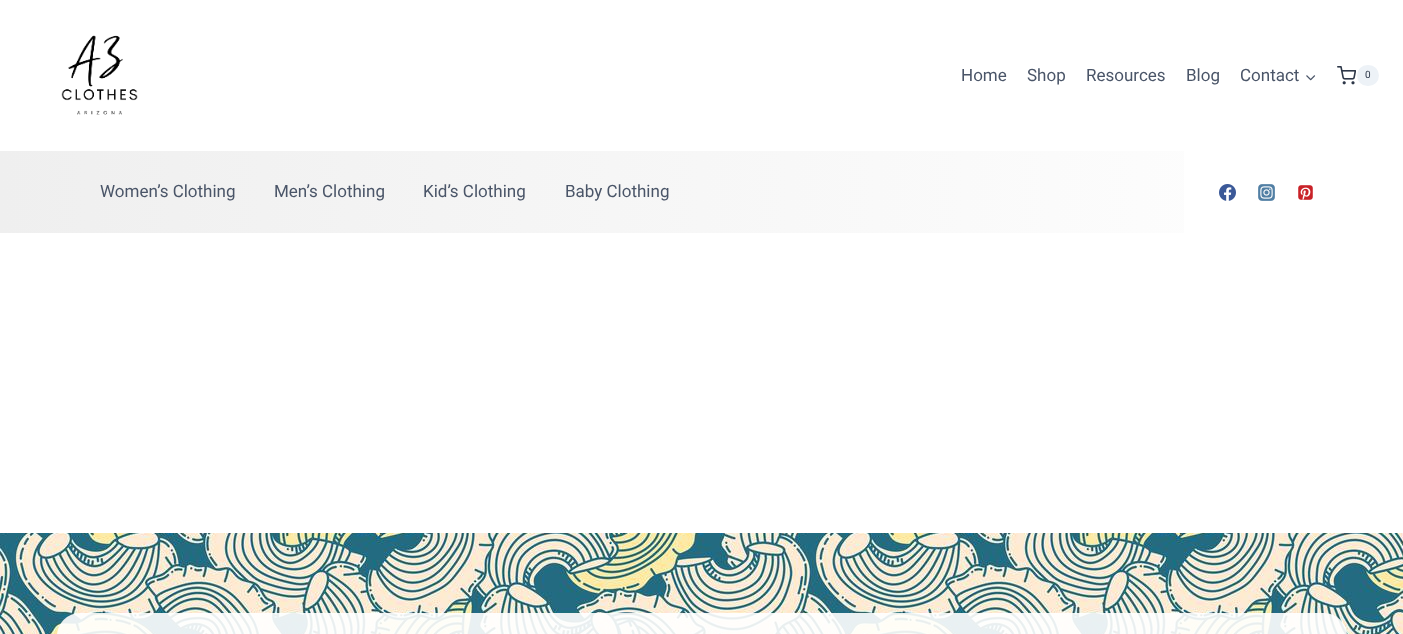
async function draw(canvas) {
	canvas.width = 1403;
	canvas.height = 634;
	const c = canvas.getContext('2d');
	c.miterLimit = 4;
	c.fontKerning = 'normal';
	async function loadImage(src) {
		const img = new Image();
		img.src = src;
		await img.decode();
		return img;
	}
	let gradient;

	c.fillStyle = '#fff';
	c.fillRect(0, 0, 1403, 634);
	c.drawImage(await loadImage('img1.png'), 0, 533, 1403, 101);
	c.drawImage(await loadImage('img2.png'), 61, 35, 77, 80);
	c.font = '17px Roboto';
	c.fillStyle = '#4a5568';
	for (const [text, x, y] of [
		['Home', 961, 81],
		['Shop', 1027, 81],
		['Resources', 1086, 81],
		['Blog', 1186, 81],
		['Contact', 1240, 81],
	]) {
		c.fillText(text, x, y);
	}
	c.drawImage(await loadImage('img3.png'), 1306, 75, 10, 6);
	c.drawImage(await loadImage('img4.png'), 1337, 66, 19, 19);
	c.fillStyle = '#edf2f7';
	c.beginPath();
	c.roundRect(1357, 65, 22, 21, 10.5);
	c.fill();
	c.font = '10px Roboto';
	c.fillStyle = '#2d3748';
	c.fillText('0', 1365, 78);
	gradient = c.createLinearGradient(0, 192, 1403, 192);
	gradient.addColorStop(0, '#efefef');
	gradient.addColorStop(1, '#fff');
	c.fillStyle = gradient;
	c.fillRect(0, 151, 1184, 82);
	c.font = '17px Roboto';
	c.fillStyle = '#4a5568';
	for (const [text, x, y] of [
		['Women’s Clothing', 100, 197],
		['Men’s Clothing', 274, 197],
		['Kid’s Clothing', 423, 197],
		['Baby Clothing', 565, 197],
	]) {
		c.fillText(text, x, y);
	}
	c.drawImage(await loadImage('img5.png'), 1219, 184, 17, 17);
	c.drawImage(await loadImage('img6.png'), 1258, 184, 17, 17);
	c.drawImage(await loadImage('img7.png'), 1298, 185, 15, 15);
	c.fillStyle = '#ffffffe6';
	c.beginPath();
	c.roundRect(57, 613, 1290, 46, 25);
	c.fill();
}

draw(document.querySelector('canvas'));
